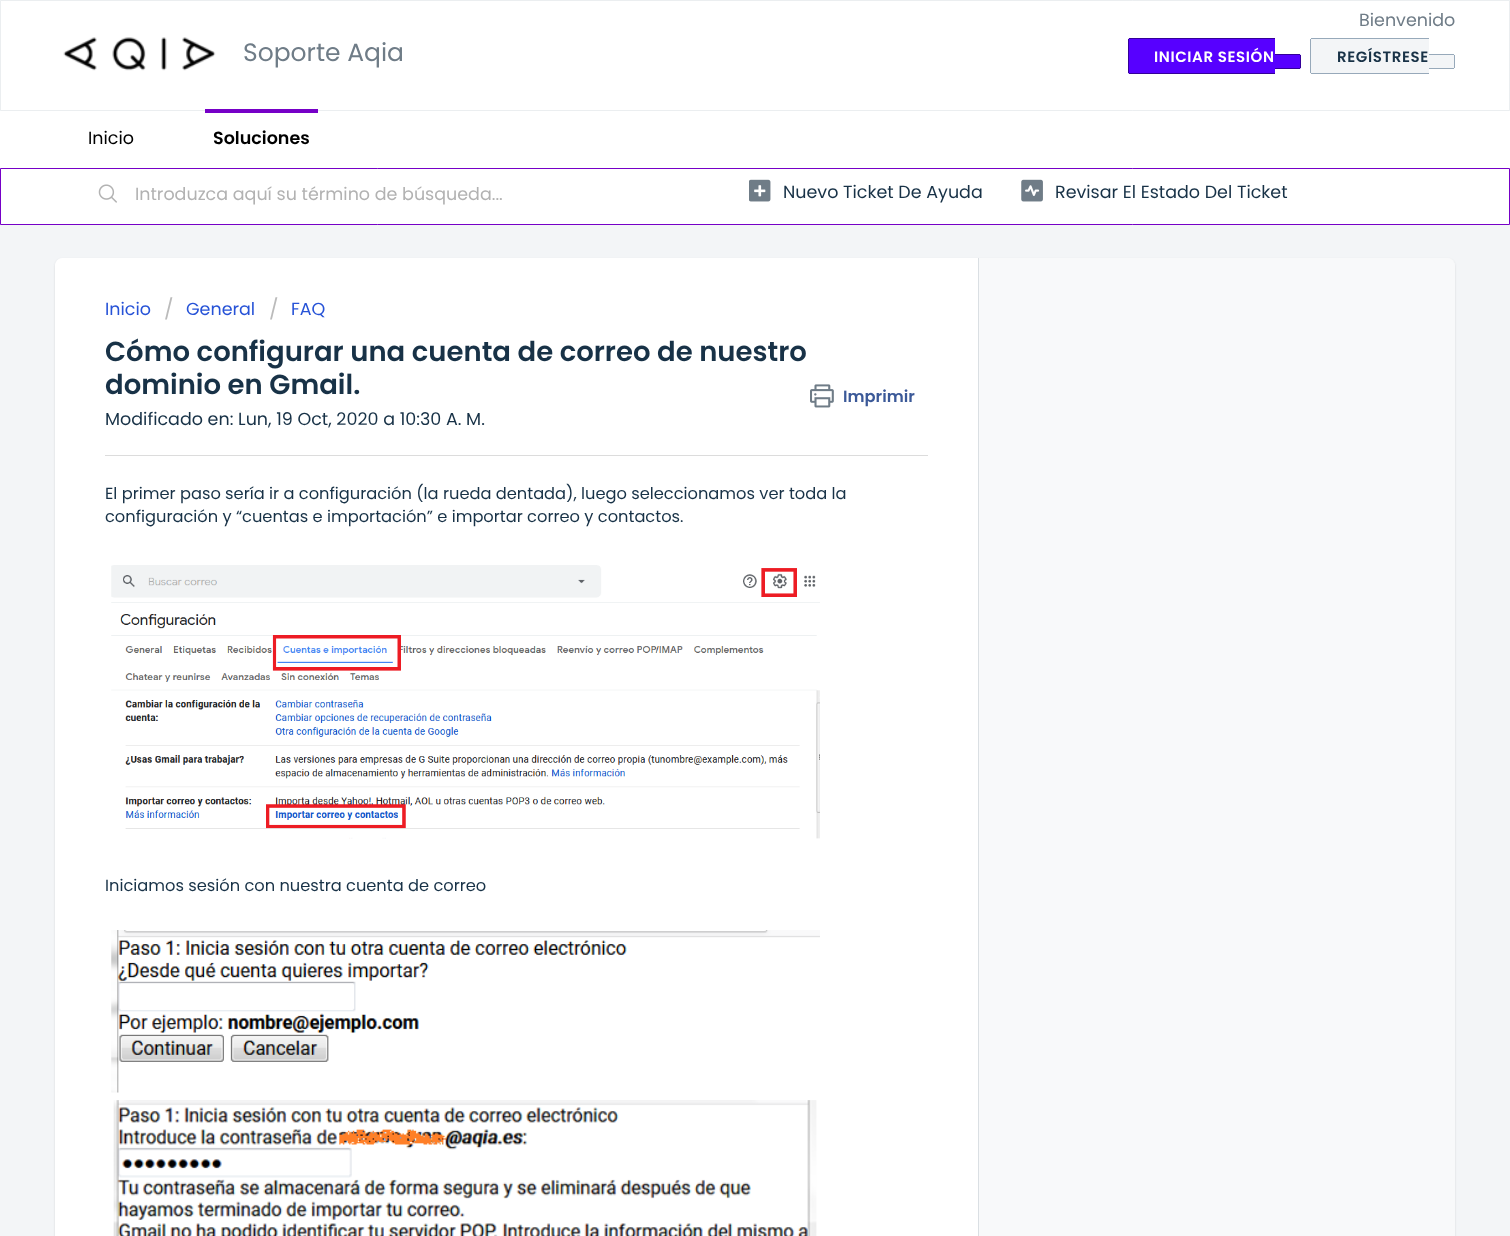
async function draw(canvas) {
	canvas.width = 1510;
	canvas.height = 1236;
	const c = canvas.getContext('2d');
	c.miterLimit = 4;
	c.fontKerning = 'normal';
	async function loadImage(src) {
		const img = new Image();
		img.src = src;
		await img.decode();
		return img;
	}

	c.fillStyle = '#f3f5f7';
	c.fillRect(0, 0, 1510, 1236);
	c.fillStyle = '#fff';
	c.beginPath();
	c.rect(0.5, 0.5, 1509, 110);
	c.fill();
	c.strokeStyle = '#ebeef0';
	c.stroke();
	c.drawImage(await loadImage('img1.png'), 63, 37, 153, 34);
	c.font = '25px Poppins';
	c.fillStyle = '#6f7c87';
	c.fillText('Soporte Aqia', 243, 61);
	c.font = '17.5px Poppins';
	c.fillText('Bienvenido', 1359, 26);
	c.fillStyle = '#5700ff';
	c.beginPath();
	c.roundRect(1128, 38, 147, 36, [2.5, 0, 0, 2.5]);
	c.fill();
	c.letterSpacing = '0.6px';
	c.font = '600 15px Poppins';
	c.fillStyle = '#fff';
	c.fillText('INICIAR SESIÓN', 1154, 62);
	for (const [x, y, w, h, color] of [
		[1129, 38, 146, 1, '#340099'],
		[1129, 73, 146, 1, '#340099'],
		[1128, 39, 1, 34, '#340099'],
	]) {
		c.fillStyle = color;
		c.fillRect(x, y, w, h);
	}
	c.fillStyle = '#5700ff';
	c.beginPath();
	c.roundRect(1275, 54, 26, 15, [0, 2.5, 2.5, 0]);
	c.fill();
	for (const [x, y, w, h, color] of [
		[1275, 54, 25, 1, '#340099'],
		[1300, 55, 1, 13, '#340099'],
		[1275, 68, 25, 1, '#340099'],
	]) {
		c.fillStyle = color;
		c.fillRect(x, y, w, h);
	}
	c.fillStyle = '#f3f5f7';
	c.beginPath();
	c.roundRect(1310, 38, 119, 36, [2.5, 0, 0, 2.5]);
	c.fill();
	c.fillStyle = '#183247';
	c.fillText('REGÍSTRESE', 1337, 62);
	for (const [x, y, w, h, color] of [
		[1311, 38, 118, 1, '#97a9ba'],
		[1311, 73, 118, 1, '#97a9ba'],
		[1310, 39, 1, 34, '#97a9ba'],
	]) {
		c.fillStyle = color;
		c.fillRect(x, y, w, h);
	}
	c.fillStyle = '#f3f5f7';
	c.beginPath();
	c.roundRect(1429, 54, 26, 15, [0, 2.5, 2.5, 0]);
	c.fill();
	for (const [x, y, w, h, color] of [
		[1429, 54, 25, 1, '#97a9ba'],
		[1454, 55, 1, 13, '#97a9ba'],
		[1429, 68, 25, 1, '#97a9ba'],
		[0, 111, 1510, 57, '#fff'],
	]) {
		c.fillStyle = color;
		c.fillRect(x, y, w, h);
	}
	c.letterSpacing = '0px';
	c.font = '17.5px Poppins';
	c.fillStyle = '#000';
	c.fillText('Inicio', 88, 144);
	c.fillStyle = '#7600c7';
	c.fillRect(205, 109, 113, 4);
	c.font = '600 17.5px Poppins';
	c.fillStyle = '#000';
	c.fillText('Soluciones', 213, 144);
	c.fillStyle = '#fff';
	c.beginPath();
	c.rect(0.5, 168.5, 1509, 56);
	c.fill();
	c.strokeStyle = '#7600c7';
	c.stroke();
	c.drawImage(await loadImage('img2.png'), 98, 184, 19, 19);
	c.font = '17.5px Poppins';
	c.fillStyle = '#b2b2b2';
	c.fillText('Introduzca aquí su término de búsqueda...', 135, 200);
	c.drawImage(await loadImage('img3.png'), 749, 179, 22, 23);
	c.fillStyle = '#183247';
	c.fillText('Nuevo Ticket De Ayuda', 783, 198);
	c.drawImage(await loadImage('img4.png'), 1021, 179, 22, 23);
	c.fillText('Revisar El Estado Del Ticket', 1055, 198);
	c.fillStyle = '#3f3f4426';
	c.filter = 'blur(1px)';
	c.beginPath();
	c.roundRect(55, 259, 1400, 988, 8);
	c.fill();
	c.filter = 'none';
	c.fillStyle = '#f8f9fa';
	c.beginPath();
	c.roundRect(55, 258, 1400, 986, 8);
	c.fill();
	c.beginPath();
	c.roundRect(979, 258, 476, 25, [0, 8, 8, 0]);
	c.fill();
	c.fillStyle = '#fff';
	c.beginPath();
	c.moveTo(63, 258);
	c.lineTo(979, 258);
	c.lineTo(979, 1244);
	c.lineTo(63, 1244);
	c.bezierCurveTo(58.5, 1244, 55, 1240.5, 55, 1236);
	c.lineTo(55, 266);
	c.bezierCurveTo(55, 261.5, 58.5, 258, 63, 258);
	c.closePath();
	c.fill();
	c.fillStyle = '#dadfe3';
	c.fillRect(978, 258, 1, 978);
	c.fillStyle = '#2753d7';
	c.fillText('Inicio', 105, 315);
	c.font = '20px Poppins';
	c.fillStyle = '#bbb';
	c.fillText('/', 164, 316);
	c.font = '17.5px Poppins';
	c.fillStyle = '#2753d7';
	c.fillText('General', 186, 315);
	c.font = '20px Poppins';
	c.fillStyle = '#bbb';
	c.fillText('/', 269, 316);
	c.font = '17.5px Poppins';
	c.fillStyle = '#2753d7';
	c.fillText('FAQ', 291, 315);
	c.font = '600 27.5px Poppins';
	c.fillStyle = '#183247';
	c.fillText('Cómo configurar una cuenta de correo de nuestro', 105, 361);
	c.fillText('dominio en Gmail.', 105, 394);
	c.drawImage(await loadImage('img5.png'), 810, 384, 24, 24);
	c.font = '600 16.25px Poppins';
	c.fillStyle = '#3b5998';
	c.fillText('Imprimir', 843, 402);
	c.font = '17.5px Poppins';
	c.fillStyle = '#183247';
	c.fillText('Modificado en: Lun, 19 Oct, 2020 a 10:30 A. M.', 105, 425);
	c.fillStyle = '#dcdcdc';
	c.fillRect(105, 455, 823, 1);
	c.font = '16.25px Poppins';
	c.fillStyle = '#183247';
	c.fillText('El primer paso sería ir a configuración (la rueda dentada), luego seleccionamos ver toda la', 105, 499);
	c.fillText('configuración y “cuentas e importación” e importar correo y contactos.', 105, 522);
	c.drawImage(await loadImage('img6.png'), 111, 565, 709, 274);
	c.fillText('Iniciamos sesión con nuestra cuenta de correo', 105, 891);
	c.drawImage(await loadImage('img7.png'), 111, 930, 709, 163);
	c.drawImage(await loadImage('img8.png'), 113, 1100, 704, 136);
}

draw(document.querySelector('canvas'));
